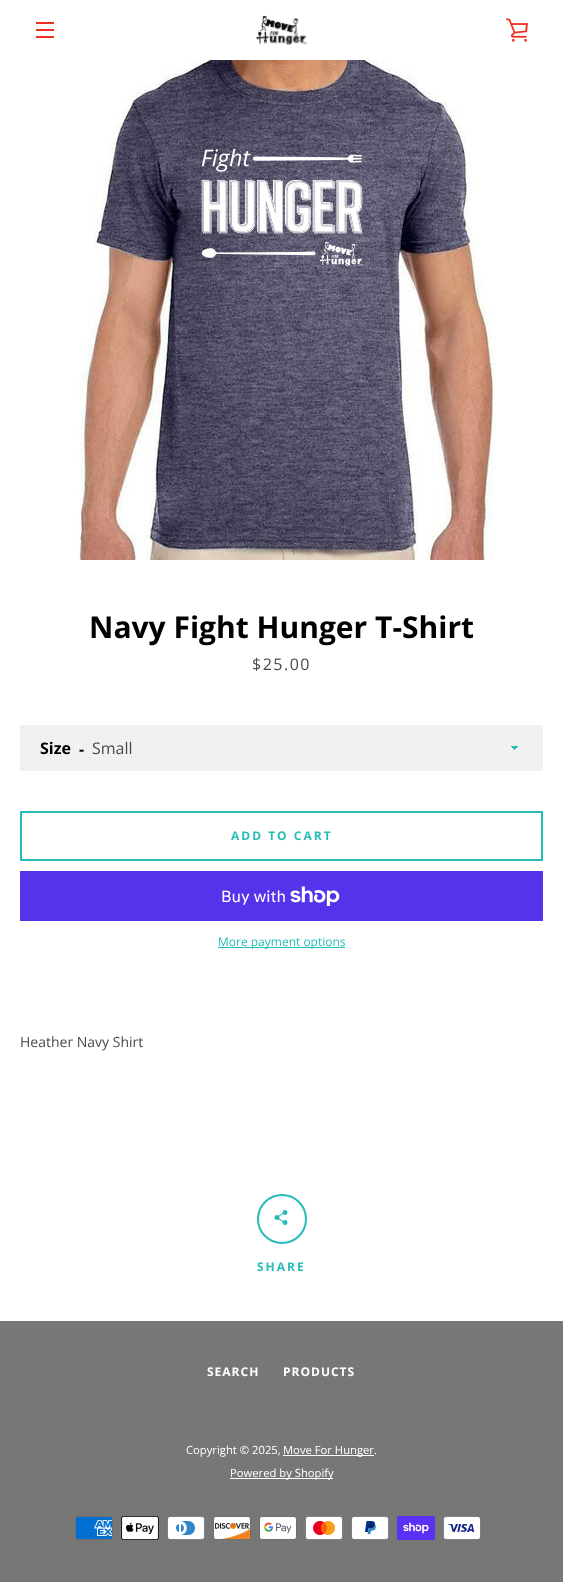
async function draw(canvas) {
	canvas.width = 563;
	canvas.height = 1582;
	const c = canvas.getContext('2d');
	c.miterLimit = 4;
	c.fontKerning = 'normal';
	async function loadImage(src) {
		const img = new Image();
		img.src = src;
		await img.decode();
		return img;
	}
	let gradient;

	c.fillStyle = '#fff';
	c.fillRect(0, 0, 563, 1582);
	for (const [x, y, w, h, color] of [
		[36, 22, 18, 2, '#ee3024'],
		[36, 29, 18, 2, '#ee3024'],
		[36, 36, 18, 2, '#ee3024'],
	]) {
		c.fillStyle = color;
		c.fillRect(x, y, w, h);
	}
	c.drawImage(await loadImage('img1.png'), 256, 15, 52, 30);
	c.drawImage(await loadImage('img2.png'), 506, 18, 22, 24);
	c.drawImage(await loadImage('img3.png'), 78, 60, 418, 500);
	c.font = 'bold 30px Open Sans';
	c.fillStyle = '#000';
	c.fillText('Navy Fight Hunger T-Shirt', 89, 638);
	c.letterSpacing = '1.5px';
	c.font = '16px Open Sans';
	c.fillStyle = '#4a4a4a';
	c.fillText('$25.00', 252, 670);
	c.fillStyle = '#f1f1f1';
	c.fillRect(20, 725, 523, 46);
	c.letterSpacing = '0px';
	c.font = 'bold 16px Open Sans';
	c.fillStyle = '#000';
	c.fillText('Size', 40, 754);
	c.fillText('-', 79, 755);
	gradient = c.createLinearGradient(515, 746, 519, 750);
	gradient.addColorStop(0.5, '#27bcb8');
	gradient.addColorStop(0.5, '#f1f1f1');
	c.fillStyle = gradient;
	c.fillRect(515, 746, 4, 3);
	gradient = c.createLinearGradient(511, 750, 515, 746);
	gradient.addColorStop(0.5, '#f1f1f1');
	gradient.addColorStop(0.5, '#27bcb8');
	c.fillStyle = gradient;
	c.fillRect(511, 746, 4, 4);
	c.font = '16px Open Sans';
	c.fillStyle = '#4a4a4a';
	c.fillText('Small', 92, 754);
	c.strokeStyle = '#27bcb8';
	c.lineWidth = 2;
	c.strokeRect(21, 812, 521, 48);
	c.letterSpacing = '2px';
	c.font = 'bold 12px Open Sans';
	c.fillStyle = '#27bcb8';
	c.fillText('ADD TO CART', 231, 840);
	c.fillStyle = '#5433eb';
	c.fillRect(20, 871, 523, 50);
	c.letterSpacing = '0px';
	c.font = '16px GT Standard';
	c.fillStyle = '#fff';
	c.fillText('Buy with', 221, 902);
	c.drawImage(await loadImage('img4.png'), 290, 886, 50, 20);
	c.fillStyle = '#27bcb8';
	c.fillRect(218, 947, 127, 1);
	c.font = '12px Open Sans';
	c.fillText('More payment options', 218, 946);
	c.font = '14px Open Sans';
	c.fillStyle = '#4a4a4a';
	c.fillText('Heather Navy Shirt', 20, 1047);
	c.beginPath();
	c.arc(282, 1219, 24, 0, 2 * Math.PI);
	c.stroke();
	c.drawImage(await loadImage('img5.png'), 274, 1210, 14, 15);
	c.letterSpacing = '2px';
	c.font = 'bold 12px Open Sans';
	c.fillStyle = '#27bcb8';
	c.fillText('SHARE', 257, 1271);
	c.fillStyle = '#777';
	c.fillRect(0, 1321, 563, 261);
	c.letterSpacing = '1px';
	c.fillStyle = '#fff';
	c.fillText('SEARCH', 207, 1376);
	c.fillText('PRODUCTS', 283, 1376);
	c.letterSpacing = '0px';
	c.font = '11.25px Open Sans';
	c.fillText('Copyright © 2025,', 186, 1454);
	c.fillRect(283, 1455, 91, 1);
	c.fillText('Move For Hunger.', 283, 1454);
	c.fillRect(230, 1478, 103, 1);
	c.fillText('Powered by Shopify', 230, 1477);
	c.drawImage(await loadImage('img6.png'), 75, 1516, 38, 24);
	c.drawImage(await loadImage('img7.png'), 121, 1516, 38, 24);
	c.drawImage(await loadImage('img8.png'), 167, 1516, 38, 24);
	c.drawImage(await loadImage('img9.png'), 213, 1516, 38, 24);
	c.drawImage(await loadImage('img10.png'), 259, 1516, 38, 24);
	c.drawImage(await loadImage('img11.png'), 305, 1516, 38, 24);
	c.drawImage(await loadImage('img12.png'), 351, 1516, 38, 24);
	c.drawImage(await loadImage('img13.png'), 397, 1516, 38, 24);
	c.drawImage(await loadImage('img14.png'), 443, 1516, 38, 24);
}

draw(document.querySelector('canvas'));
